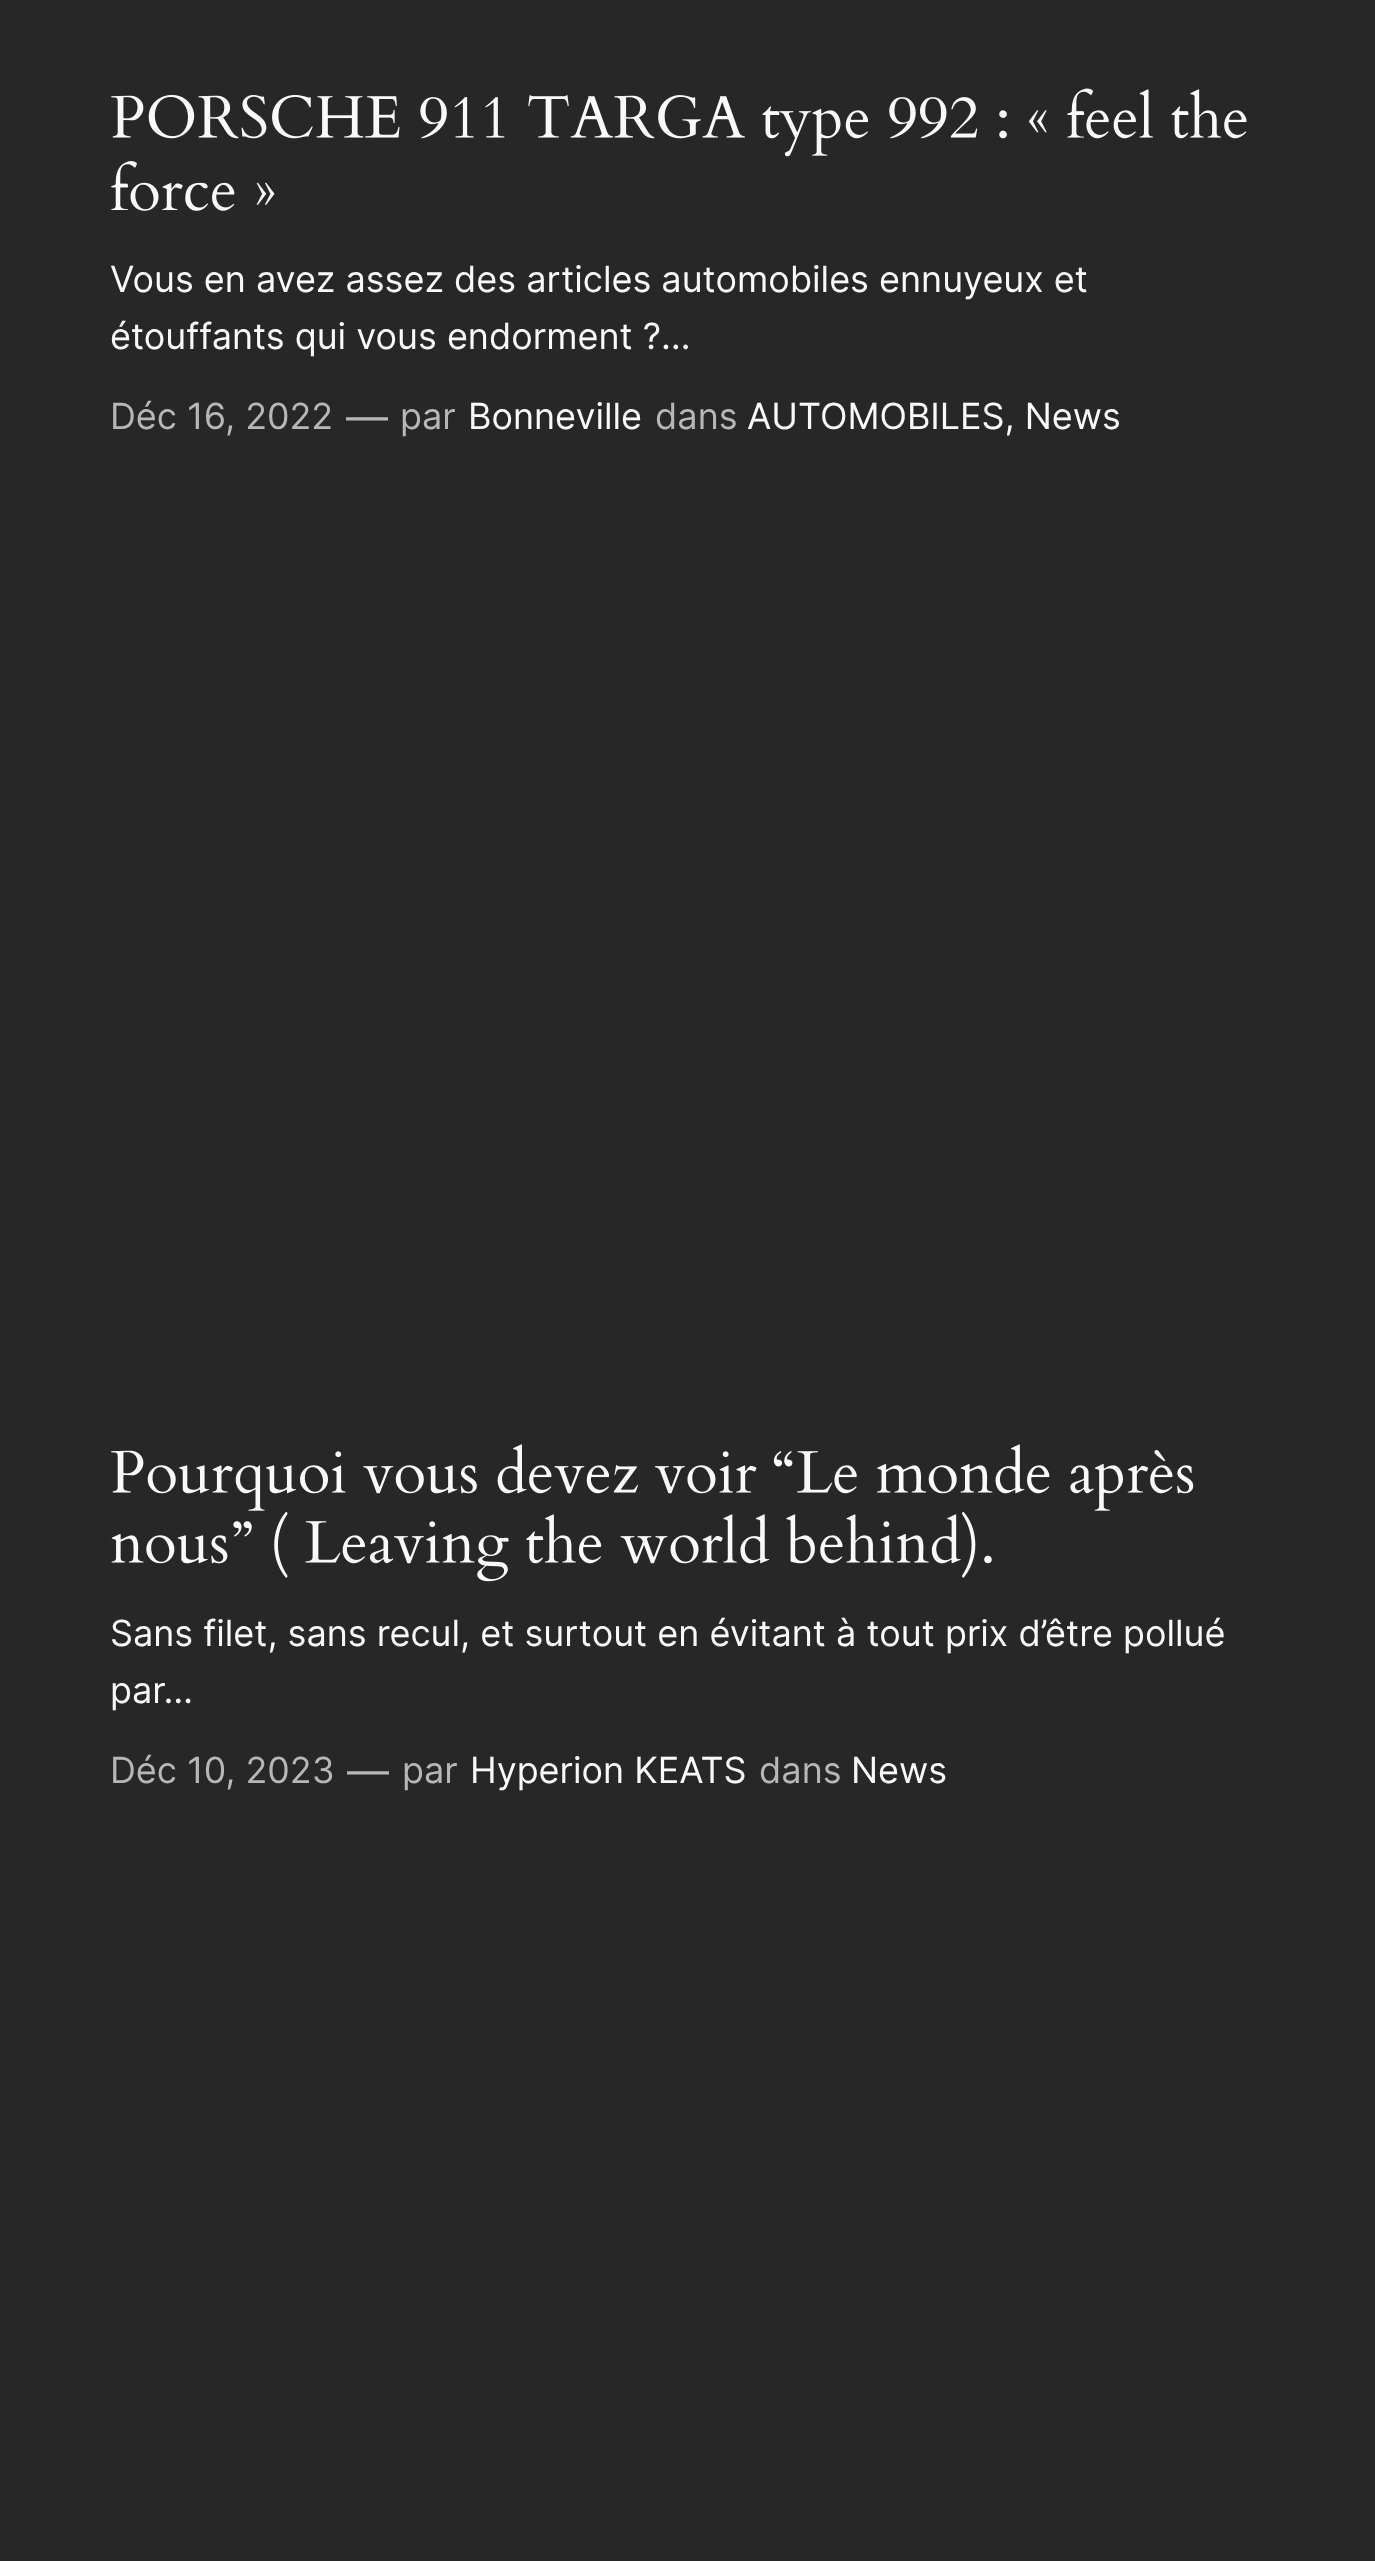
async function draw(canvas) {
	canvas.width = 1375;
	canvas.height = 2561;
	const c = canvas.getContext('2d');
	c.miterLimit = 4;
	c.fontKerning = 'normal';
	async function loadImage(src) {
		const img = new Image();
		img.src = src;
		await img.decode();
		return img;
	}

	c.fillStyle = '#272727';
	c.fillRect(0, 0, 1375, 2561);
	c.drawImage(await loadImage('img1.png'), 111, 88, 1136, 69);
	c.drawImage(await loadImage('img2.png'), 111, 161, 164, 50);
	c.font = '36px Inter';
	c.fillStyle = '#f9f9f9';
	c.fillText('Vous en avez assez des articles automobiles ennuyeux et', 110, 292);
	c.fillText('étouffants qui vous endorment ?…', 110, 349);
	c.fillStyle = '#b7b7b7';
	c.fillText('Déc 16, 2022', 110, 429);
	c.font = '42px Inter';
	c.fillText('—', 346, 432);
	c.font = '36px Inter';
	c.fillText('par', 400, 429);
	c.fillStyle = '#f9f9f9';
	c.fillText('Bonneville', 468, 429);
	c.fillStyle = '#b7b7b7';
	c.fillText('dans', 655, 429);
	c.fillStyle = '#f9f9f9';
	c.fillText('AUTOMOBILES, News', 747, 429);
	c.drawImage(await loadImage('img3.png'), 111, 1444, 1083, 67);
	c.drawImage(await loadImage('img4.png'), 111, 1511, 881, 71);
	c.fillText('Sans filet, sans recul, et surtout en évitant à tout prix d’être pollué', 110, 1646);
	c.fillText('par…', 110, 1703);
	c.fillStyle = '#b7b7b7';
	c.fillText('Déc 10, 2023', 110, 1783);
	c.font = '42px Inter';
	c.fillText('—', 347, 1786);
	c.font = '36px Inter';
	c.fillText('par', 402, 1783);
	c.fillStyle = '#f9f9f9';
	c.fillText('Hyperion KEATS', 470, 1783);
	c.fillStyle = '#b7b7b7';
	c.fillText('dans', 759, 1783);
	c.fillStyle = '#f9f9f9';
	c.fillText('News', 851, 1783);
}

draw(document.querySelector('canvas'));
